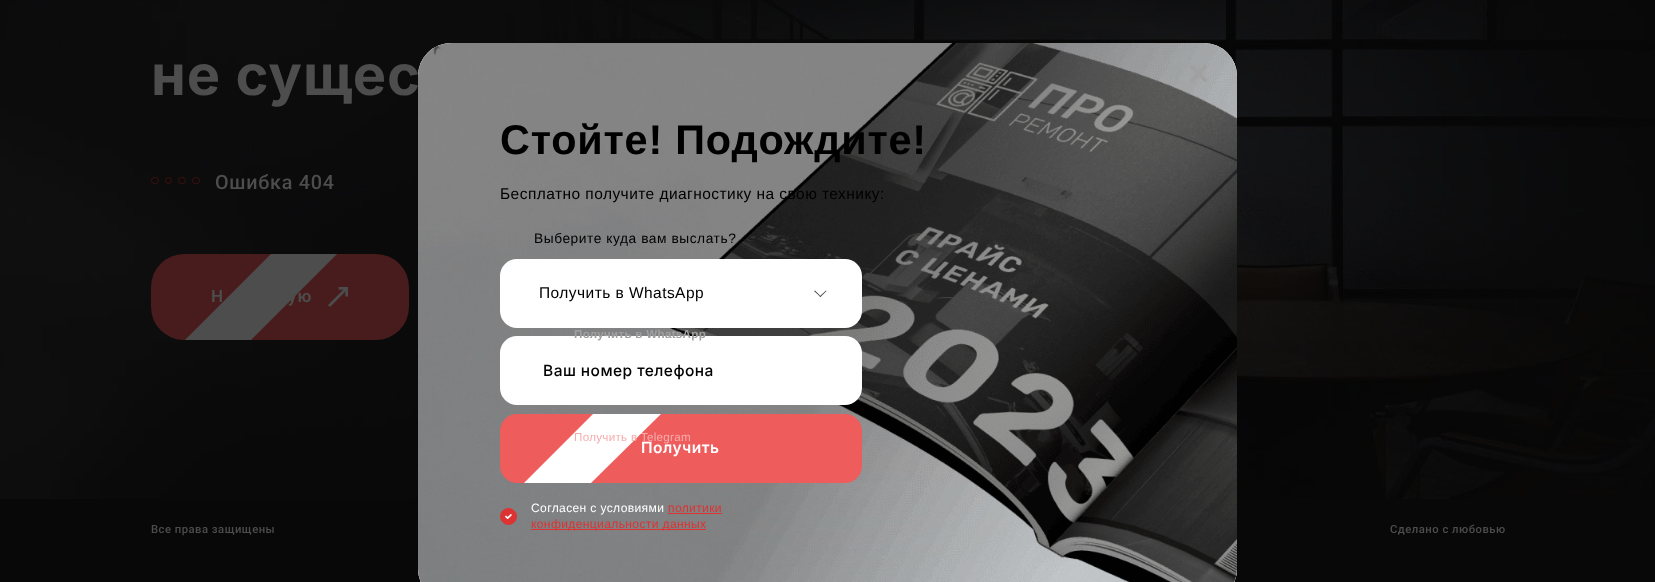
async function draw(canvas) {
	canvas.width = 1655;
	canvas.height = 582;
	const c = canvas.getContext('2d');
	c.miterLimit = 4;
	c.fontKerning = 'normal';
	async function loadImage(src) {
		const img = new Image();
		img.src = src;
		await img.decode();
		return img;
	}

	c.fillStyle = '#fff';
	c.fillRect(0, 0, 1655, 582);
	c.drawImage(await loadImage('img1.png'), 0, 0, 1655, 499);
	c.letterSpacing = '1px';
	c.font = 'bold 56px Inter';
	c.fillStyle = '#4d4d4d';
	c.fillText('не сущес', 151, 95);
	c.beginPath();
	c.roundRect(151.5, 177.5, 7, 6, 3);
	c.strokeStyle = '#420f0f';
	c.stroke();
	c.beginPath();
	c.arc(168.5, 180.5, 3, 0, 2 * Math.PI);
	c.stroke();
	c.beginPath();
	c.roundRect(178.5, 177.5, 7, 6, 3);
	c.stroke();
	c.beginPath();
	c.roundRect(192.5, 177.5, 7, 6, 3);
	c.stroke();
	c.letterSpacing = '0.75px';
	c.font = '500 19.75px Roboto';
	c.fillText('Ошибка 404', 215, 189);
	c.fillStyle = '#481c1c';
	c.beginPath();
	c.roundRect(151, 254, 258, 86, 33);
	c.fill();
	c.drawImage(await loadImage('img2.png'), 328, 287, 20, 20);
	c.fillStyle = '#4d4d4d';
	c.beginPath();
	c.moveTo(185, 340);
	c.lineTo(271, 254);
	c.lineTo(337, 254);
	c.lineTo(251, 340);
	c.closePath();
	c.fill();
	c.letterSpacing = '1px';
	c.font = '600 17px Roboto';
	c.fillText('Н', 211, 302);
	c.fillText('ую', 288, 302);
	c.fillStyle = '#080808';
	c.fillRect(0, 499, 1655, 83);
	c.fillStyle = '#fff';
	c.beginPath();
	c.roundRect(418, 43, 819, 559, 33);
	c.fill();
	c.drawImage(await loadImage('img3.png'), 418, 43, 819, 539);
	c.drawImage(await loadImage('img4.png'), 418, 43, 819, 539);
	c.drawImage(await loadImage('img5.png'), 1190, 65, 17, 17);
	c.letterSpacing = '0.8px';
	c.font = 'bold 41.4px Liberation Sans';
	c.fillStyle = '#000';
	c.fillText('Стойте! Подождите!', 500, 154);
	c.letterSpacing = '0.45px';
	c.font = '15.5px Liberation Sans';
	c.fillText('Бесплатно получите диагностику на свою технику:', 500, 199);
	c.letterSpacing = '0.55px';
	c.font = '13.75px Liberation Sans';
	c.fillText('Выберите куда вам выслать?', 534, 243);
	c.fillStyle = '#fff';
	c.beginPath();
	c.roundRect(500, 259, 362, 69, 17);
	c.fill();
	c.letterSpacing = '0.45px';
	c.font = '15.5px Liberation Sans';
	c.fillStyle = '#000';
	c.fillText('Получить в WhatsApp', 539, 298);
	c.fillStyle = '#454545';
	c.beginPath();
	c.moveTo(819.5, 296.5);
	c.lineTo(826, 290.5);
	c.lineTo(826.5, 291);
	c.lineTo(820.5, 297);
	c.closePath();
	c.fill();
	c.beginPath();
	c.moveTo(814, 291);
	c.lineTo(815, 290.5);
	c.lineTo(821, 296.5);
	c.lineTo(820.5, 297);
	c.closePath();
	c.fill();
	c.fillStyle = '#fff';
	c.beginPath();
	c.roundRect(500, 336, 362, 69, 17);
	c.fill();
	c.letterSpacing = '0.3px';
	c.font = 'bold 11.6px Liberation Sans';
	c.fillStyle = '#a0a0a1';
	c.fillText('Получить в WhatsApp', 574, 338);
	c.fillStyle = '#ef5c5c';
	c.beginPath();
	c.roundRect(500, 414, 362, 69, 17);
	c.fill();
	c.fillStyle = '#fff';
	c.beginPath();
	c.moveTo(524, 483);
	c.lineTo(593, 414);
	c.lineTo(661, 414);
	c.lineTo(591, 483);
	c.closePath();
	c.fill();
	c.font = '11.6px Liberation Sans';
	c.fillStyle = '#f7adad';
	c.fillText('Получить в Telegram', 574, 441);
	c.letterSpacing = '0.45px';
	c.font = '500 15.5px Inter';
	c.fillStyle = '#000';
	c.fillText('Ваш номер телефона', 543, 376);
	c.letterSpacing = '0.5px';
	c.font = '600 15.5px Inter';
	c.fillStyle = '#fff';
	c.fillText('Получить', 641, 453);
	c.fillStyle = '#d33';
	c.beginPath();
	c.arc(508.5, 516.5, 8, 0, 2 * Math.PI);
	c.fill();
	c.strokeStyle = '#d33';
	c.stroke();
	c.drawImage(await loadImage('img6.png'), 505, 514, 7, 5);
	c.letterSpacing = '0.35px';
	c.font = '12.1px Liberation Sans';
	c.fillStyle = '#fff';
	c.fillText('Cогласен с условиями', 531, 512);
	c.fillStyle = '#d33';
	c.fillText('политики', 668, 512);
	c.fillRect(668, 513, 54, 1);
	c.fillRect(531, 529, 175, 1);
	c.fillText('конфиденциальности данных', 531, 528);
	c.letterSpacing = '0.5px';
	c.font = '500 11.25px Roboto';
	c.fillStyle = '#4d4d4d';
	c.fillText('Все права защищены', 151, 533);
	c.fillText('Сделано с любовью', 1390, 533);
}

draw(document.querySelector('canvas'));
